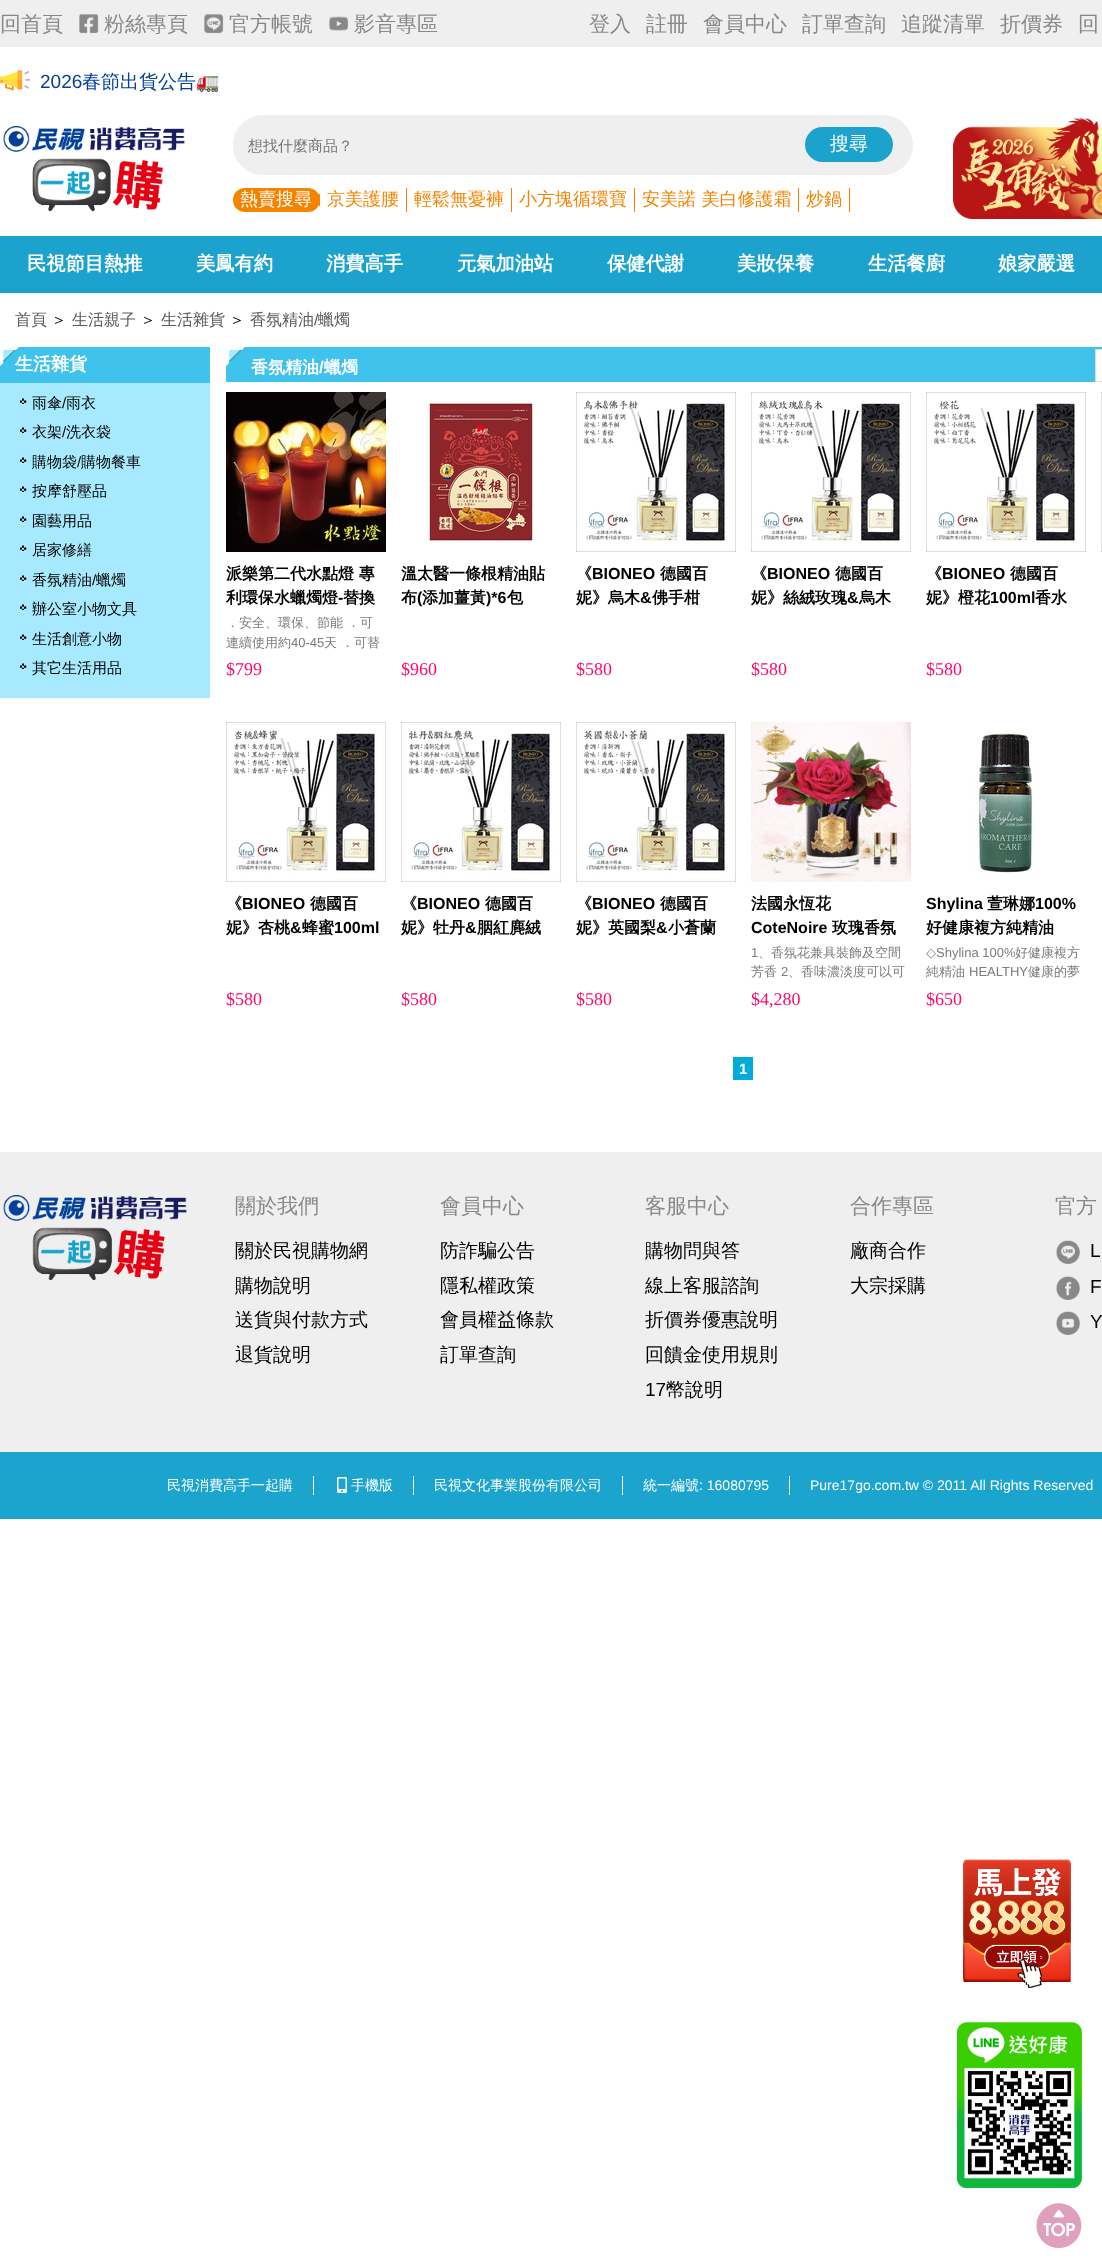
async function draw(canvas) {
	canvas.width = 1102;
	canvas.height = 2268;
	const c = canvas.getContext('2d');
	c.miterLimit = 4;
	c.fontKerning = 'normal';
	async function loadImage(src) {
		const img = new Image();
		img.src = src;
		await img.decode();
		return img;
	}

	c.fillStyle = '#fff';
	c.fillRect(0, 0, 1102, 2268);
	c.fillStyle = '#efefef';
	c.fillRect(0, 0, 1102, 47);
	c.font = '500 21px WenQuanYi Zen Hei';
	c.fillStyle = '#888';
	c.fillText('回首頁', 0, 31);
	c.drawImage(await loadImage('img1.png'), 79, 14, 20, 20);
	c.fillText('粉絲專頁', 104, 31);
	c.drawImage(await loadImage('img2.png'), 204, 14, 20, 20);
	c.fillText('官方帳號', 229, 31);
	c.drawImage(await loadImage('img3.png'), 329, 16, 20, 15);
	for (const [text, x, y] of [
		['影音專區', 354, 31],
		['登入', 589, 31],
		['註冊', 646, 31],
		['會員中心', 703, 31],
		['訂單查詢', 802, 31],
		['追蹤清單', 901, 31],
		['折價券', 1000, 31],
		['回', 1078, 31],
	]) {
		c.fillText(text, x, y);
	}
	c.drawImage(await loadImage('img4.png'), 0, 70, 30, 21);
	c.font = '19px Liberation Sans';
	c.fillStyle = '#004098';
	c.fillText('2026', 40, 88);
	c.font = '500 19px WenQuanYi Zen Hei';
	c.fillText('春節出貨公告', 82, 88);
	c.font = '19px Noto Color Emoji';
	c.fillText('🚛', 196, 88);
	c.drawImage(await loadImage('img5.png'), 3, 126, 182, 86);
	c.fillStyle = '#efefef';
	c.beginPath();
	c.roundRect(233, 115, 680, 60, 30);
	c.fill();
	c.font = '500 15px WenQuanYi Zen Hei';
	c.fillStyle = '#757575';
	c.fillText('想找什麼商品？', 248, 151);
	c.fillStyle = '#1ba3cd';
	c.beginPath();
	c.roundRect(805, 127, 88, 35, 17.5);
	c.fill();
	c.font = '500 19px WenQuanYi Zen Hei';
	c.fillStyle = '#fff';
	c.fillText('搜尋', 830, 150);
	c.fillStyle = '#f68300';
	c.beginPath();
	c.roundRect(233, 188, 87, 24, 12);
	c.fill();
	c.fillRect(319, 194, 1, 12);
	c.font = '500 18px WenQuanYi Zen Hei';
	c.fillStyle = '#fff';
	c.fillText('熱賣搜尋', 240, 205);
	c.fillStyle = '#f68300';
	c.fillRect(406, 188, 1, 24);
	c.fillText('京美護腰', 327, 205);
	c.fillRect(511, 188, 1, 24);
	c.fillText('輕鬆無憂褲', 414, 205);
	c.fillRect(634, 188, 1, 24);
	c.fillText('小方塊循環寶', 519, 205);
	c.fillRect(798, 188, 1, 24);
	c.fillText('安美諾 美白修護霜', 642, 205);
	c.fillRect(849, 188, 1, 24);
	c.fillText('炒鍋', 806, 205);
	c.drawImage(await loadImage('img6.png'), 953, 126, 110, 93);
	c.drawImage(await loadImage('img7.png'), 1063, 117, 39, 102);
	c.fillStyle = '#1ba3cd';
	c.fillRect(0, 236, 1102, 57);
	c.font = 'bold 19.25px WenQuanYi Zen Hei';
	c.fillStyle = '#fff';
	for (const [text, x, y] of [
		['民視節目熱推', 27, 270],
		['美鳳有約', 196, 270],
		['消費高手', 326, 270],
		['元氣加油站', 457, 270],
		['保健代謝', 607, 270],
		['美妝保養', 737, 270],
		['生活餐廚', 868, 270],
		['娘家嚴選', 998, 270],
	]) {
		c.fillText(text, x, y);
	}
	c.font = '500 16px WenQuanYi Zen Hei';
	c.fillStyle = '#58595b';
	c.fillText('首頁', 15, 325);
	c.fillStyle = '#000';
	c.fillText('＞', 51, 325);
	c.fillStyle = '#58595b';
	c.fillText('生活親子', 72, 325);
	c.fillStyle = '#000';
	c.fillText('＞', 140, 325);
	c.fillStyle = '#58595b';
	c.fillText('生活雜貨', 161, 325);
	c.fillStyle = '#000';
	c.fillText('＞', 229, 325);
	c.fillStyle = '#58595b';
	c.fillText('香氛精油', 250, 325);
	c.font = '16px Liberation Sans';
	c.fillText('/', 314, 325);
	c.font = '500 16px WenQuanYi Zen Hei';
	c.fillText('蠟燭', 318, 325);
	c.fillStyle = '#a7eaff';
	c.fillRect(0, 383, 210, 315);
	c.fillStyle = '#3fc2eb';
	c.fillRect(0, 347, 210, 36);
	c.drawImage(await loadImage('img8.png'), 0, 347, 19, 19);
	c.font = 'bold 18px WenQuanYi Zen Hei';
	c.fillStyle = '#fff';
	c.fillText('生活雜貨', 15, 370);
	c.drawImage(await loadImage('img9.png'), 20, 398, 7, 6);
	c.font = '500 15px WenQuanYi Zen Hei';
	c.fillStyle = '#000';
	c.fillText('雨傘', 32, 408);
	c.font = '15px Liberation Sans';
	c.fillText('/', 62, 408);
	c.font = '500 15px WenQuanYi Zen Hei';
	c.fillText('雨衣', 66, 408);
	c.drawImage(await loadImage('img9.png'), 20, 427, 7, 6);
	c.fillText('衣架', 32, 437);
	c.font = '15px Liberation Sans';
	c.fillText('/', 62, 437);
	c.font = '500 15px WenQuanYi Zen Hei';
	c.fillText('洗衣袋', 66, 437);
	c.drawImage(await loadImage('img9.png'), 20, 457, 7, 6);
	c.fillText('購物袋', 32, 467);
	c.font = '15px Liberation Sans';
	c.fillText('/', 77, 467);
	c.font = '500 15px WenQuanYi Zen Hei';
	c.fillText('購物餐車', 81, 467);
	c.drawImage(await loadImage('img9.png'), 20, 486, 7, 6);
	c.fillText('按摩舒壓品', 32, 496);
	c.drawImage(await loadImage('img9.png'), 20, 516, 7, 6);
	c.fillText('園藝用品', 32, 526);
	c.drawImage(await loadImage('img9.png'), 20, 545, 7, 6);
	c.fillText('居家修繕', 32, 555);
	c.drawImage(await loadImage('img9.png'), 20, 575, 7, 6);
	c.fillText('香氛精油', 32, 585);
	c.font = '15px Liberation Sans';
	c.fillText('/', 92, 585);
	c.font = '500 15px WenQuanYi Zen Hei';
	c.fillText('蠟燭', 96, 585);
	c.drawImage(await loadImage('img9.png'), 20, 604, 7, 6);
	c.fillText('辦公室小物文具', 32, 614);
	c.drawImage(await loadImage('img9.png'), 20, 634, 7, 6);
	c.fillText('生活創意小物', 32, 644);
	c.drawImage(await loadImage('img9.png'), 20, 663, 7, 6);
	c.fillText('其它生活用品', 32, 673);
	c.fillStyle = '#3fc2eb';
	c.fillRect(226, 347, 876, 35);
	c.drawImage(await loadImage('img8.png'), 226, 347, 19, 19);
	c.font = 'bold 17px WenQuanYi Zen Hei';
	c.fillStyle = '#fff';
	c.fillText('香氛精油', 251, 373);
	c.font = 'bold 17px Liberation Sans';
	c.fillText('/', 319, 373);
	c.font = 'bold 17px WenQuanYi Zen Hei';
	c.fillText('蠟燭', 324, 373);
	c.beginPath();
	c.rect(1095.5, 349.5, 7, 32);
	c.fill();
	c.strokeStyle = '#ddd';
	c.stroke();
	c.drawImage(await loadImage('img10.png'), 1101, 392, 1, 160);
	c.drawImage(await loadImage('img11.png'), 226, 392, 160, 160);
	c.font = 'bold 16px WenQuanYi Zen Hei';
	c.fillStyle = '#000';
	c.fillText('派樂第二代水點燈 專', 226, 579);
	c.fillText('利環保水蠟燭燈', 226, 603);
	c.font = 'bold 16px Liberation Sans';
	c.fillText('-', 338, 603);
	c.font = 'bold 16px WenQuanYi Zen Hei';
	c.fillText('替換', 343, 603);
	c.font = '500 13px WenQuanYi Zen Hei';
	c.fillStyle = '#7c7c7c';
	c.fillText('．安全、環保、節能 ．可', 226, 627);
	c.fillText('連續使用約', 226, 647);
	c.font = '13px Liberation Sans';
	c.fillText('40-45', 291, 647);
	c.font = '500 13px WenQuanYi Zen Hei';
	c.fillText('天 ．可替', 324, 647);
	c.font = '18px Liberation Serif';
	c.fillStyle = '#ff096b';
	c.fillText('$799', 226, 675);
	c.drawImage(await loadImage('img12.png'), 429, 401, 104, 142);
	c.font = 'bold 16px WenQuanYi Zen Hei';
	c.fillStyle = '#000';
	c.fillText('溫太醫一條根精油貼', 401, 579);
	c.fillText('布', 401, 603);
	c.font = 'bold 16px Liberation Sans';
	c.fillText('(', 417, 603);
	c.font = 'bold 16px WenQuanYi Zen Hei';
	c.fillText('添加薑黃', 422, 603);
	c.font = 'bold 16px Liberation Sans';
	c.fillText(')*6', 486, 603);
	c.font = 'bold 16px WenQuanYi Zen Hei';
	c.fillText('包', 507, 603);
	c.font = '18px Liberation Serif';
	c.fillStyle = '#ff096b';
	c.fillText('$960', 401, 675);
	c.drawImage(await loadImage('img13.png'), 576, 392, 160, 160);
	c.font = 'bold 16px WenQuanYi Zen Hei';
	c.fillStyle = '#000';
	c.fillText('《', 576, 579);
	c.font = 'bold 16px Liberation Sans';
	c.fillText('BIONEO', 592, 579);
	c.font = 'bold 16px WenQuanYi Zen Hei';
	c.fillText('德國百', 660, 579);
	c.fillText('妮》烏木', 576, 603);
	c.font = 'bold 16px Liberation Sans';
	c.fillText('&', 640, 603);
	c.font = 'bold 16px WenQuanYi Zen Hei';
	c.fillText('佛手柑', 652, 603);
	c.font = '18px Liberation Serif';
	c.fillStyle = '#ff096b';
	c.fillText('$580', 576, 675);
	c.drawImage(await loadImage('img14.png'), 751, 392, 160, 160);
	c.font = 'bold 16px WenQuanYi Zen Hei';
	c.fillStyle = '#000';
	c.fillText('《', 751, 579);
	c.font = 'bold 16px Liberation Sans';
	c.fillText('BIONEO', 767, 579);
	c.font = 'bold 16px WenQuanYi Zen Hei';
	c.fillText('德國百', 835, 579);
	c.fillText('妮》絲絨玫瑰', 751, 603);
	c.font = 'bold 16px Liberation Sans';
	c.fillText('&', 847, 603);
	c.font = 'bold 16px WenQuanYi Zen Hei';
	c.fillText('烏木', 859, 603);
	c.font = '18px Liberation Serif';
	c.fillStyle = '#ff096b';
	c.fillText('$580', 751, 675);
	c.drawImage(await loadImage('img15.png'), 926, 392, 160, 160);
	c.font = 'bold 16px WenQuanYi Zen Hei';
	c.fillStyle = '#000';
	c.fillText('《', 926, 579);
	c.font = 'bold 16px Liberation Sans';
	c.fillText('BIONEO', 942, 579);
	c.font = 'bold 16px WenQuanYi Zen Hei';
	c.fillText('德國百', 1010, 579);
	c.fillText('妮》橙花', 926, 603);
	c.font = 'bold 16px Liberation Sans';
	c.fillText('100ml', 990, 603);
	c.font = 'bold 16px WenQuanYi Zen Hei';
	c.fillText('香水', 1035, 603);
	c.font = '18px Liberation Serif';
	c.fillStyle = '#ff096b';
	c.fillText('$580', 926, 675);
	c.drawImage(await loadImage('img16.png'), 226, 722, 160, 160);
	c.font = 'bold 16px WenQuanYi Zen Hei';
	c.fillStyle = '#000';
	c.fillText('《', 226, 909);
	c.font = 'bold 16px Liberation Sans';
	c.fillText('BIONEO', 242, 909);
	c.font = 'bold 16px WenQuanYi Zen Hei';
	c.fillText('德國百', 310, 909);
	c.fillText('妮》杏桃', 226, 933);
	c.font = 'bold 16px Liberation Sans';
	c.fillText('&', 290, 933);
	c.font = 'bold 16px WenQuanYi Zen Hei';
	c.fillText('蜂蜜', 302, 933);
	c.font = 'bold 16px Liberation Sans';
	c.fillText('100ml', 334, 933);
	c.font = '18px Liberation Serif';
	c.fillStyle = '#ff096b';
	c.fillText('$580', 226, 1005);
	c.drawImage(await loadImage('img17.png'), 401, 722, 160, 160);
	c.font = 'bold 16px WenQuanYi Zen Hei';
	c.fillStyle = '#000';
	c.fillText('《', 401, 909);
	c.font = 'bold 16px Liberation Sans';
	c.fillText('BIONEO', 417, 909);
	c.font = 'bold 16px WenQuanYi Zen Hei';
	c.fillText('德國百', 485, 909);
	c.fillText('妮》牡丹', 401, 933);
	c.font = 'bold 16px Liberation Sans';
	c.fillText('&', 465, 933);
	c.font = 'bold 16px WenQuanYi Zen Hei';
	c.fillText('胭紅麂絨', 477, 933);
	c.font = '18px Liberation Serif';
	c.fillStyle = '#ff096b';
	c.fillText('$580', 401, 1005);
	c.drawImage(await loadImage('img18.png'), 576, 722, 160, 160);
	c.font = 'bold 16px WenQuanYi Zen Hei';
	c.fillStyle = '#000';
	c.fillText('《', 576, 909);
	c.font = 'bold 16px Liberation Sans';
	c.fillText('BIONEO', 592, 909);
	c.font = 'bold 16px WenQuanYi Zen Hei';
	c.fillText('德國百', 660, 909);
	c.fillText('妮》英國梨', 576, 933);
	c.font = 'bold 16px Liberation Sans';
	c.fillText('&', 656, 933);
	c.font = 'bold 16px WenQuanYi Zen Hei';
	c.fillText('小蒼蘭', 668, 933);
	c.font = '18px Liberation Serif';
	c.fillStyle = '#ff096b';
	c.fillText('$580', 576, 1005);
	c.drawImage(await loadImage('img19.png'), 751, 722, 160, 160);
	c.font = 'bold 16px WenQuanYi Zen Hei';
	c.fillStyle = '#000';
	c.fillText('法國永恆花', 751, 909);
	c.font = 'bold 16px Liberation Sans';
	c.fillText('CoteNoire', 751, 933);
	c.font = 'bold 16px WenQuanYi Zen Hei';
	c.fillText('玫瑰香氛', 832, 933);
	c.font = '13px Liberation Sans';
	c.fillStyle = '#7c7c7c';
	c.fillText('1', 751, 957);
	c.font = '500 13px WenQuanYi Zen Hei';
	c.fillText('、香氛花兼具裝飾及空間', 758, 957);
	c.fillText('芳香', 751, 976);
	c.font = '13px Liberation Sans';
	c.fillText('2', 781, 976);
	c.font = '500 13px WenQuanYi Zen Hei';
	c.fillText('、香味濃淡度可以可', 788, 976);
	c.font = '18px Liberation Serif';
	c.fillStyle = '#ff096b';
	c.fillText('$4,280', 751, 1005);
	c.drawImage(await loadImage('img20.png'), 974, 730, 64, 144);
	c.font = 'bold 16px Liberation Sans';
	c.fillStyle = '#000';
	c.fillText('Shylina', 926, 909);
	c.font = 'bold 16px WenQuanYi Zen Hei';
	c.fillText('萱琳娜', 987, 909);
	c.font = 'bold 16px Liberation Sans';
	c.fillText('100%', 1035, 909);
	c.font = 'bold 16px WenQuanYi Zen Hei';
	c.fillText('好健康複方純精油', 926, 933);
	c.font = '13px DejaVu Sans';
	c.fillStyle = '#7c7c7c';
	c.fillText('◇', 926, 957);
	c.font = '13px Liberation Sans';
	c.fillText('Shylina 100%', 936, 957);
	c.font = '500 13px WenQuanYi Zen Hei';
	c.fillText('好健康複方', 1015, 957);
	c.fillText('純精油', 926, 976);
	c.font = '13px Liberation Sans';
	c.fillText('HEALTHY', 969, 976);
	c.font = '500 13px WenQuanYi Zen Hei';
	c.fillText('健康的夢', 1028, 976);
	c.font = '18px Liberation Serif';
	c.fillStyle = '#ff096b';
	c.fillText('$650', 926, 1005);
	c.fillStyle = '#00aadb';
	c.fillRect(733, 1057, 20, 23);
	c.font = 'bold 15px Liberation Sans';
	c.fillStyle = '#fff';
	c.fillText('1', 739, 1074);
	c.fillStyle = '#efefef';
	c.fillRect(0, 1152, 1102, 300);
	c.drawImage(await loadImage('img21.png'), 3, 1195, 184, 86);
	c.font = '500 21px WenQuanYi Zen Hei';
	c.fillStyle = '#888';
	c.fillText('關於我們', 235, 1213);
	c.font = '500 19px WenQuanYi Zen Hei';
	c.fillStyle = '#000';
	for (const [text, x, y] of [
		['關於民視購物網', 235, 1257],
		['購物說明', 235, 1292],
		['送貨與付款方式', 235, 1326],
		['退貨說明', 235, 1361],
	]) {
		c.fillText(text, x, y);
	}
	c.font = '500 21px WenQuanYi Zen Hei';
	c.fillStyle = '#888';
	c.fillText('會員中心', 440, 1213);
	c.font = '500 19px WenQuanYi Zen Hei';
	c.fillStyle = '#000';
	for (const [text, x, y] of [
		['防詐騙公告', 440, 1257],
		['隱私權政策', 440, 1292],
		['會員權益條款', 440, 1326],
		['訂單查詢', 440, 1361],
	]) {
		c.fillText(text, x, y);
	}
	c.font = '500 21px WenQuanYi Zen Hei';
	c.fillStyle = '#888';
	c.fillText('客服中心', 645, 1213);
	c.font = '500 19px WenQuanYi Zen Hei';
	c.fillStyle = '#000';
	for (const [text, x, y] of [
		['購物問與答', 645, 1257],
		['線上客服諮詢', 645, 1292],
		['折價券優惠說明', 645, 1326],
		['回饋金使用規則', 645, 1361],
	]) {
		c.fillText(text, x, y);
	}
	c.font = '19px Liberation Sans';
	c.fillText('17', 645, 1396);
	c.font = '500 19px WenQuanYi Zen Hei';
	c.fillText('幣說明', 666, 1396);
	c.font = '500 21px WenQuanYi Zen Hei';
	c.fillStyle = '#888';
	c.fillText('合作專區', 850, 1213);
	c.font = '500 19px WenQuanYi Zen Hei';
	c.fillStyle = '#000';
	c.fillText('廠商合作', 850, 1257);
	c.fillText('大宗採購', 850, 1292);
	c.font = '500 21px WenQuanYi Zen Hei';
	c.fillStyle = '#888';
	c.fillText('官方', 1055, 1213);
	c.drawImage(await loadImage('img22.png'), 1056, 1240, 24, 24);
	c.font = '19px Liberation Sans';
	c.fillStyle = '#000';
	c.fillText('L', 1090, 1257);
	c.drawImage(await loadImage('img23.png'), 1056, 1276, 24, 24);
	c.fillText('F', 1090, 1293);
	c.drawImage(await loadImage('img24.png'), 1056, 1311, 24, 24);
	c.fillText('Y', 1090, 1328);
	c.fillStyle = '#1ba4cd';
	c.fillRect(0, 1452, 1102, 67);
	c.font = '500 14px WenQuanYi Zen Hei';
	c.fillStyle = '#fff';
	c.fillText('民視消費高手一起購', 167, 1490);
	c.fillRect(313, 1476, 1, 19);
	c.drawImage(await loadImage('img25.png'), 337, 1477, 10, 16);
	c.fillText('手機版', 351, 1490);
	c.fillRect(413, 1476, 1, 19);
	c.fillText('民視文化事業股份有限公司', 434, 1490);
	c.fillRect(622, 1476, 1, 19);
	c.fillText('統一編號', 643, 1490);
	c.font = '14px Liberation Sans';
	c.fillText(': 16080795', 699, 1490);
	c.fillRect(789, 1476, 1, 19);
	c.fillText('Pure17go.com.tw © 2011 All Rights Reserved', 810, 1490);
	c.drawImage(await loadImage('img26.png'), 963, 1859, 108, 129);
	c.drawImage(await loadImage('img27.png'), 957, 2022, 125, 166);
	c.drawImage(await loadImage('img28.png'), 1036, 2203, 46, 45);
}

draw(document.querySelector('canvas'));
